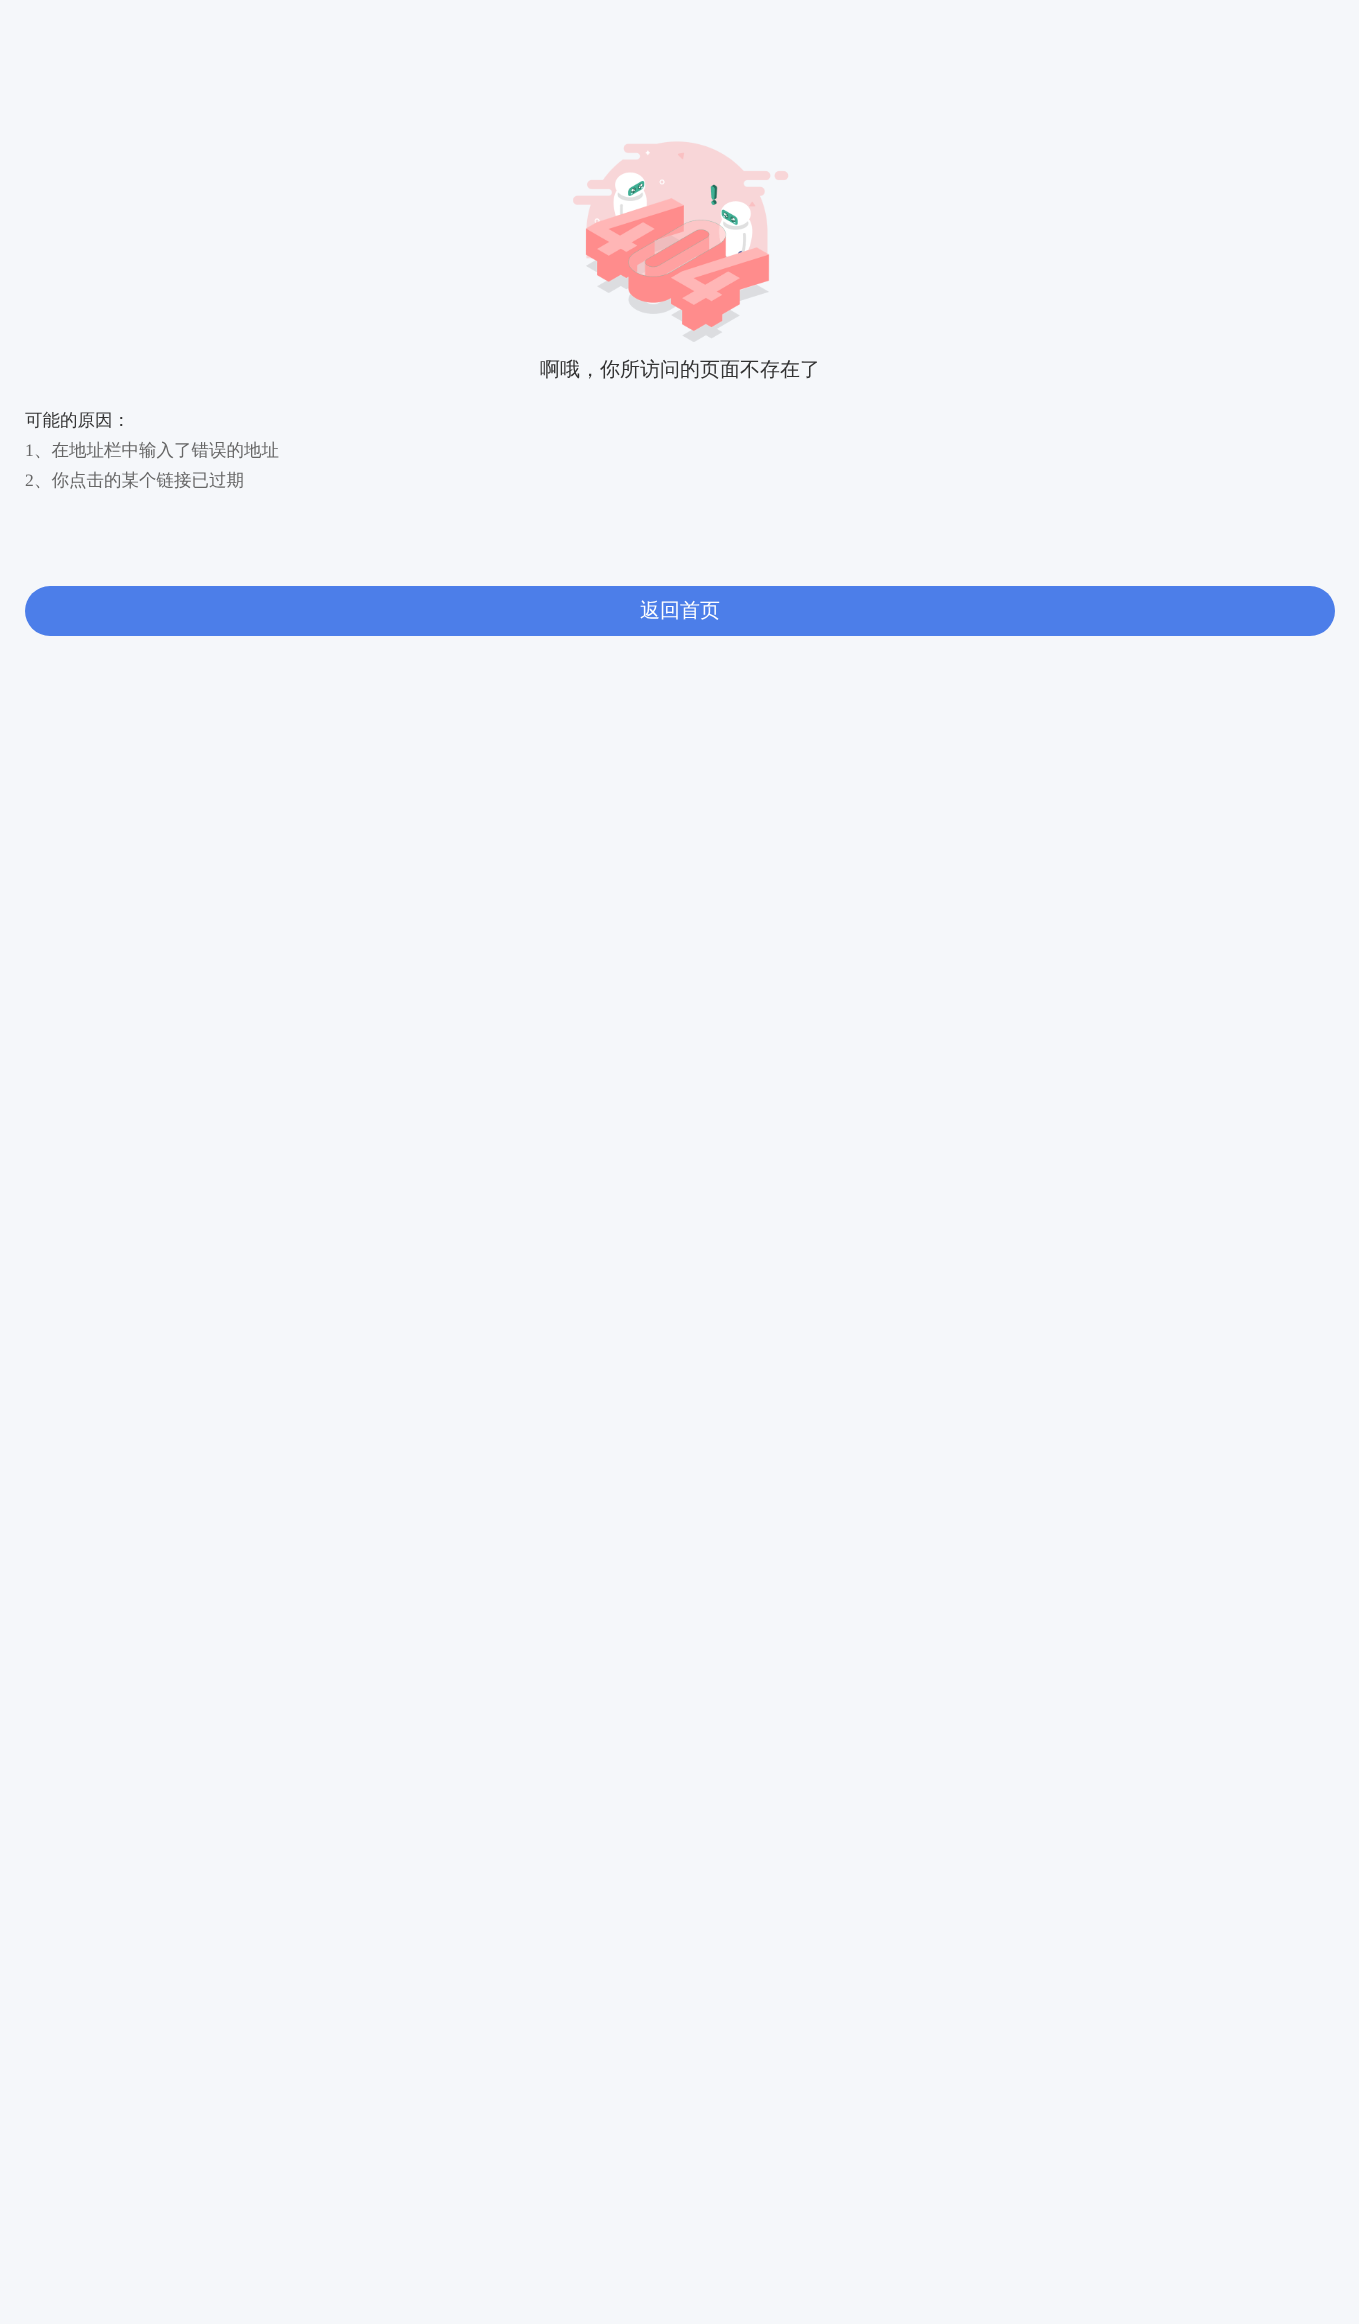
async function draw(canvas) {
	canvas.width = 1359;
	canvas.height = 2324;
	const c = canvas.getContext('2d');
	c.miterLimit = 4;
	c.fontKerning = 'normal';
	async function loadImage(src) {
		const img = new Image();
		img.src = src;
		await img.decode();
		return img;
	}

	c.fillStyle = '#f5f7fa';
	c.fillRect(0, 0, 1359, 2324);
	c.drawImage(await loadImage('img1.png'), 573, 141, 216, 201);
	c.font = '500 20px WenQuanYi Zen Hei';
	c.fillStyle = '#333';
	c.fillText('啊哦，你所访问的页面不存在了', 540, 376);
	c.font = '500 17.5px WenQuanYi Zen Hei';
	c.fillText('可能的原因：', 25, 426);
	c.font = '17.5px Liberation Serif';
	c.fillStyle = '#666';
	c.fillText('1', 25, 456);
	c.font = '500 17.5px WenQuanYi Zen Hei';
	c.fillText('、在地址栏中输入了错误的地址', 34, 456);
	c.font = '17.5px Liberation Serif';
	c.fillText('2', 25, 486);
	c.font = '500 17.5px WenQuanYi Zen Hei';
	c.fillText('、你点击的某个链接已过期', 34, 486);
	c.fillStyle = '#4c7ee9';
	c.beginPath();
	c.roundRect(25, 586, 1310, 50, 25);
	c.fill();
	c.font = '500 20px WenQuanYi Zen Hei';
	c.fillStyle = '#fff';
	c.fillText('返回首页', 640, 617);
}

draw(document.querySelector('canvas'));
